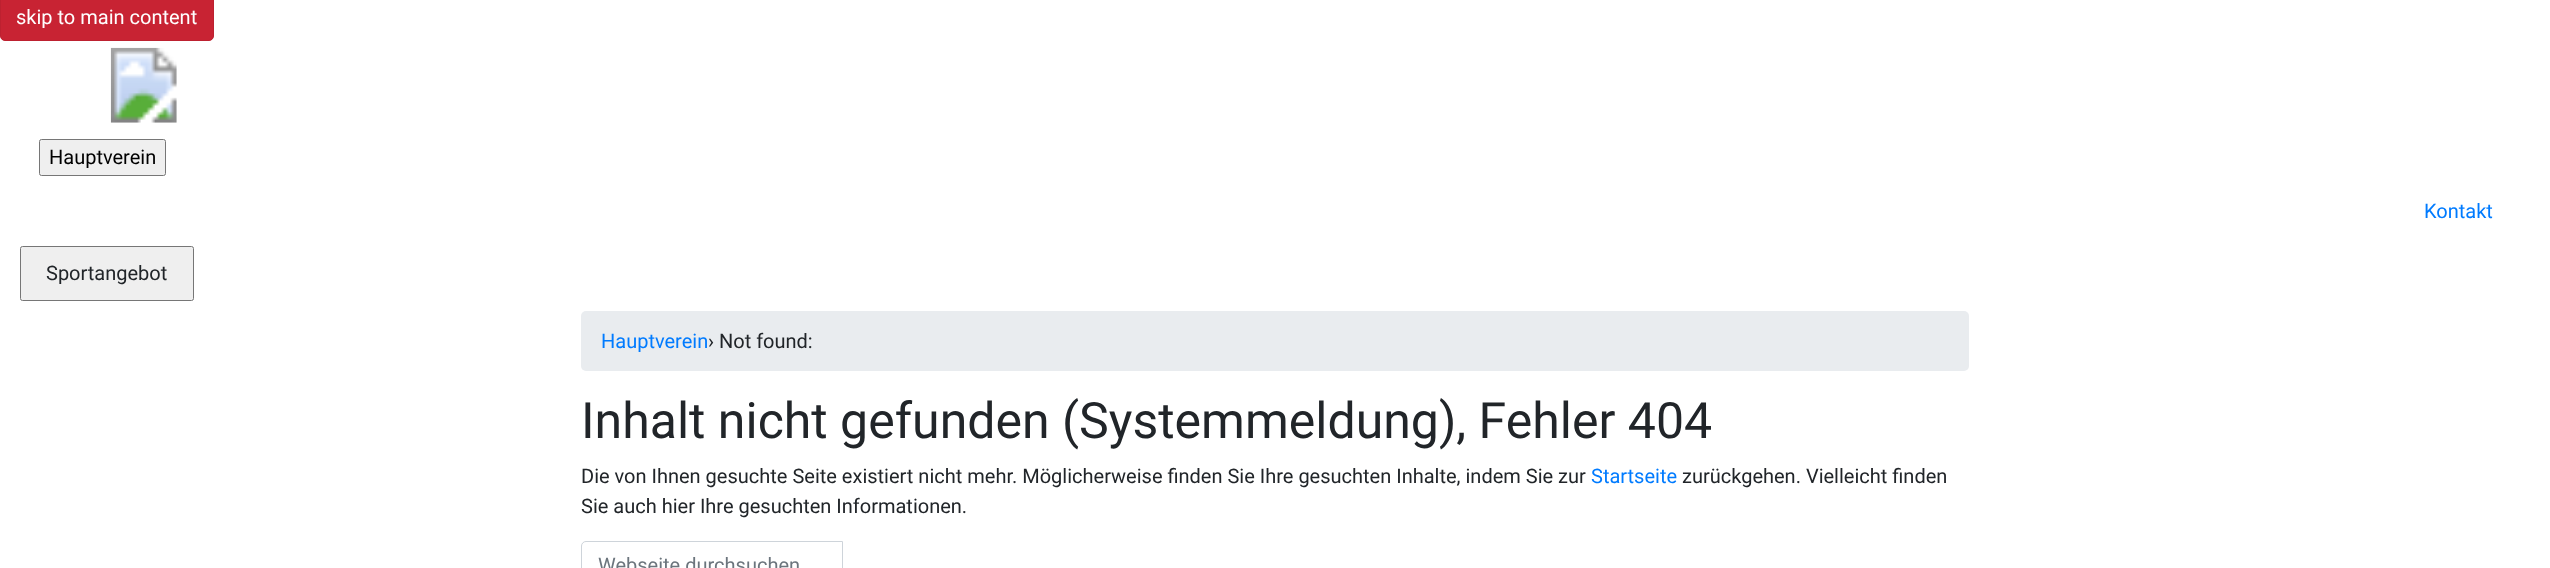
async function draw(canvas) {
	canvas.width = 2550;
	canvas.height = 568;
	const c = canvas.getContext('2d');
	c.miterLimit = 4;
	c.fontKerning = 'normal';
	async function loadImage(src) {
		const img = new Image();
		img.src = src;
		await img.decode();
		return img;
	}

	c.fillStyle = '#fff';
	c.fillRect(0, 0, 2550, 568);
	c.fillStyle = '#c82333';
	c.beginPath();
	c.roundRect(0.5, -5.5, 213, 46, 4.5);
	c.fill();
	c.strokeStyle = '#bd2130';
	c.stroke();
	c.font = '20px Roboto';
	c.fillStyle = '#fff';
	c.fillText('skip to main content', 16, 24);
	c.drawImage(await loadImage('img1.png'), 110, 47, 67, 76);
	c.fillStyle = '#efefef';
	c.beginPath();
	c.roundRect(39.5, 139.5, 126, 36, 2);
	c.fill();
	c.strokeStyle = '#767676';
	c.stroke();
	c.fillStyle = '#000';
	c.fillText('Hauptverein', 49, 164);
	c.fillStyle = '#007bff';
	c.fillText('Kontakt', 2424, 218);
	c.fillStyle = '#efefef';
	c.beginPath();
	c.roundRect(20.5, 246.5, 173, 54, 2);
	c.fill();
	c.stroke();
	c.fillStyle = '#212529';
	c.fillText('Sportangebot', 46, 280);
	c.fillStyle = '#e9ecef';
	c.beginPath();
	c.roundRect(581, 311, 1388, 60, 5);
	c.fill();
	c.fillStyle = '#007bff';
	c.fillText('Hauptverein', 601, 348);
	c.fillStyle = '#212529';
	c.fillText('› Not found:', 708, 348);
	c.font = '50px Roboto';
	c.fillText('Inhalt nicht gefunden (Systemmeldung), Fehler 404', 581, 438);
	c.font = '20px Roboto';
	c.fillText('Die von Ihnen gesuchte Seite existiert nicht mehr. Möglicherweise finden Sie Ihre gesuchten Inhalte, indem Sie zur', 581, 483);
	c.fillStyle = '#007bff';
	c.fillText('Startseite', 1591, 483);
	c.fillStyle = '#212529';
	c.fillText('zurückgehen. Vielleicht finden', 1682, 483);
	c.fillText('Sie auch hier Ihre gesuchten Informationen.', 581, 513);
	c.beginPath();
	c.moveTo(586, 541.5);
	c.lineTo(842.5, 541.5);
	c.lineTo(842.5, 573.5);
	c.lineTo(586, 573.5);
	c.bezierCurveTo(583.5, 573.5, 581.5, 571.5, 581.5, 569);
	c.lineTo(581.5, 546);
	c.bezierCurveTo(581.5, 543.5, 583.5, 541.5, 586, 541.5);
	c.closePath();
	c.strokeStyle = '#ced4da';
	c.stroke();
	c.fillStyle = '#6c757d';
	c.fillText('Webseite durchsuchen', 598, 572);
}

draw(document.querySelector('canvas'));
